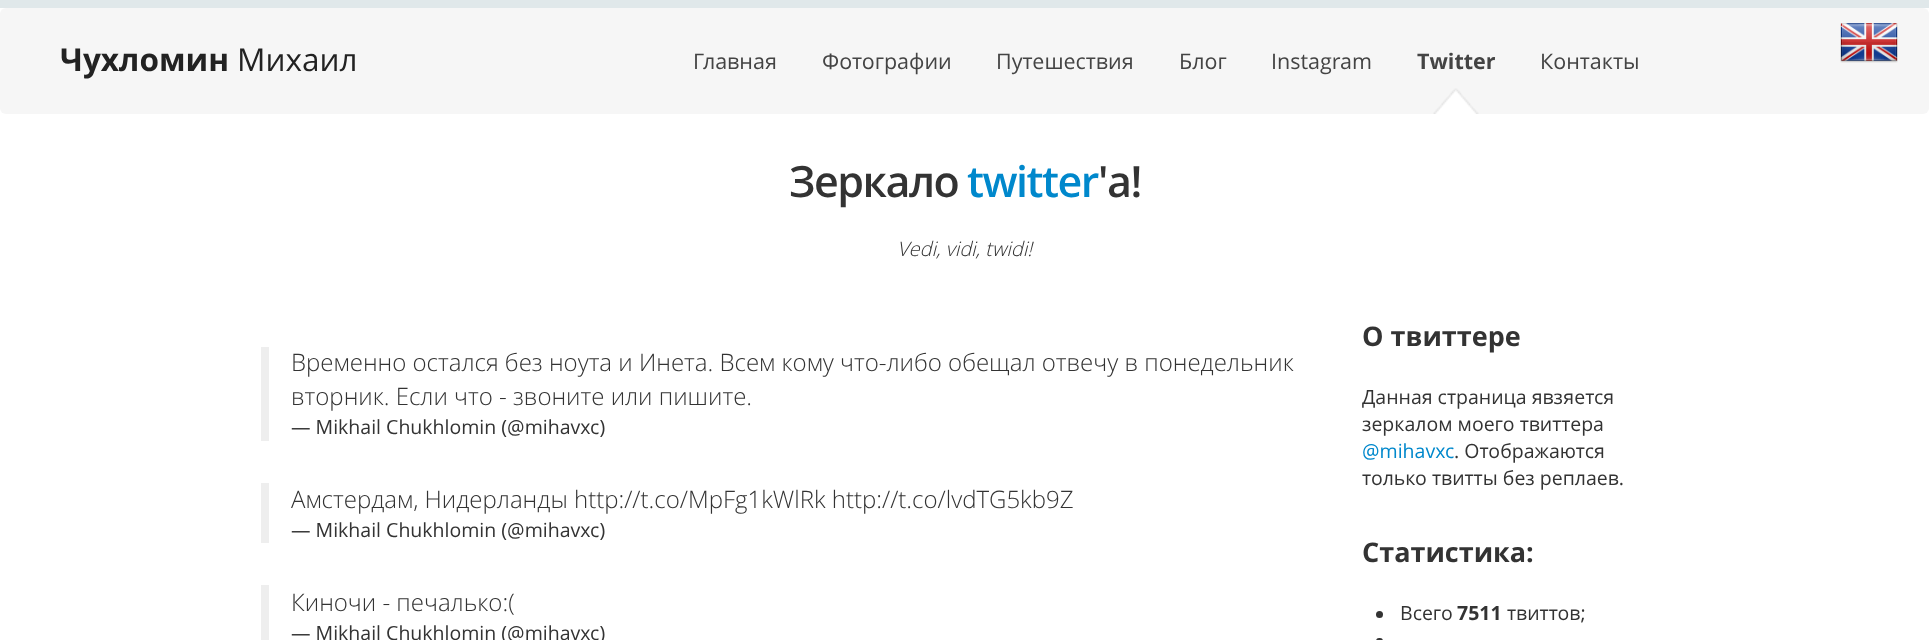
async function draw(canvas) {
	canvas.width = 1929;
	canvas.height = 640;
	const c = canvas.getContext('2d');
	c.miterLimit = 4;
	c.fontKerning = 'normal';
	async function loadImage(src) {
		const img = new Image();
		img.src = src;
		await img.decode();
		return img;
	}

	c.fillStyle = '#fff';
	c.fillRect(0, 0, 1929, 640);
	c.fillStyle = '#e0e8ea';
	c.fillRect(0, 0, 1929, 8);
	c.fillStyle = '#f6f6f6';
	c.beginPath();
	c.roundRect(0, 8, 1929, 106, 6);
	c.fill();
	c.font = 'bold 31.5px Open Sans';
	c.fillStyle = '#222';
	c.fillText('Чухломин', 60, 71);
	c.font = '31.5px Open Sans';
	c.fillText('Михаил', 237, 71);
	c.font = '21.5px Open Sans';
	c.fillStyle = '#444';
	for (const [text, x, y] of [
		['Главная', 693, 69],
		['Фотографии', 822, 69],
		['Путешествия', 996, 69],
		['Блог', 1179, 69],
		['Instagram', 1271, 69],
	]) {
		c.fillText(text, x, y);
	}
	c.drawImage(await loadImage('img1.png'), 1433, 88, 46, 26);
	c.font = 'bold 21.5px Open Sans';
	c.fillText('Twitter', 1417, 69);
	c.font = '21.5px Open Sans';
	c.fillText('Контакты', 1540, 69);
	c.drawImage(await loadImage('img2.png'), 1840, 23, 58, 40);
	c.letterSpacing = '-1.5px';
	c.font = '600 43px Open Sans';
	c.fillStyle = '#333';
	c.fillText('Зеркало', 789, 197);
	c.fillStyle = '#08c';
	c.fillText('twitter', 967, 197);
	c.fillStyle = '#333';
	c.fillText('\'a!', 1098, 197);
	c.letterSpacing = '0px';
	c.font = 'italic 300 20px Open Sans';
	c.fillText('Vedi, vidi, twidi!', 897, 256);
	c.fillStyle = '#eee';
	c.fillRect(261, 347, 8, 94);
	c.font = '300 24px Open Sans';
	c.fillStyle = '#333';
	c.fillText('Временно остался без ноута и Инета. Всем кому что-либо обещал отвечу в понедельник', 291, 371);
	c.fillText('вторник. Если что - звоните или пишите.', 291, 405);
	c.font = '19.5px Open Sans';
	c.fillText('— Mikhail Chukhlomin (@mihavxc)', 291, 434);
	c.fillStyle = '#eee';
	c.fillRect(261, 483, 8, 60);
	c.font = '300 24px Open Sans';
	c.fillStyle = '#333';
	c.fillText('Амстердам, Нидерланды http://t.co/MpFg1kWlRk http://t.co/lvdTG5kb9Z', 291, 508);
	c.font = '19.5px Open Sans';
	c.fillText('— Mikhail Chukhlomin (@mihavxc)', 291, 537);
	c.fillStyle = '#eee';
	c.fillRect(261, 585, 8, 55);
	c.font = '300 24px Open Sans';
	c.fillStyle = '#333';
	c.fillText('Киночи - печалько:(', 291, 611);
	c.font = '19.5px Open Sans';
	c.fillText('— Mikhail Chukhlomin (@mihavxc)', 291, 640);
	c.font = 'bold 27px Open Sans';
	c.fillText('О твиттере', 1362, 346);
	c.font = '19.5px Open Sans';
	c.fillText('Данная страница явзяется', 1362, 404);
	c.fillText('зеркалом моего твиттера', 1362, 431);
	c.fillStyle = '#08c';
	c.fillText('@mihavxc', 1362, 458);
	c.fillStyle = '#333';
	c.fillText('. Отображаются', 1454, 458);
	c.fillText('только твитты без реплаев.', 1362, 485);
	c.font = 'bold 27px Open Sans';
	c.fillText('Статистика:', 1362, 562);
	c.beginPath();
	c.arc(1379.5, 614.5, 3.5, 0, 2 * Math.PI);
	c.fill();
	c.font = '19.5px Open Sans';
	c.fillText('Всего', 1400, 620);
	c.font = 'bold 19.5px Open Sans';
	c.fillText('7511', 1457, 620);
	c.font = '19.5px Open Sans';
	c.fillText('твиттов;', 1507, 620);
	c.beginPath();
	c.roundRect(1376, 638, 7, 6, 3.5);
	c.fill();
}

draw(document.querySelector('canvas'));
